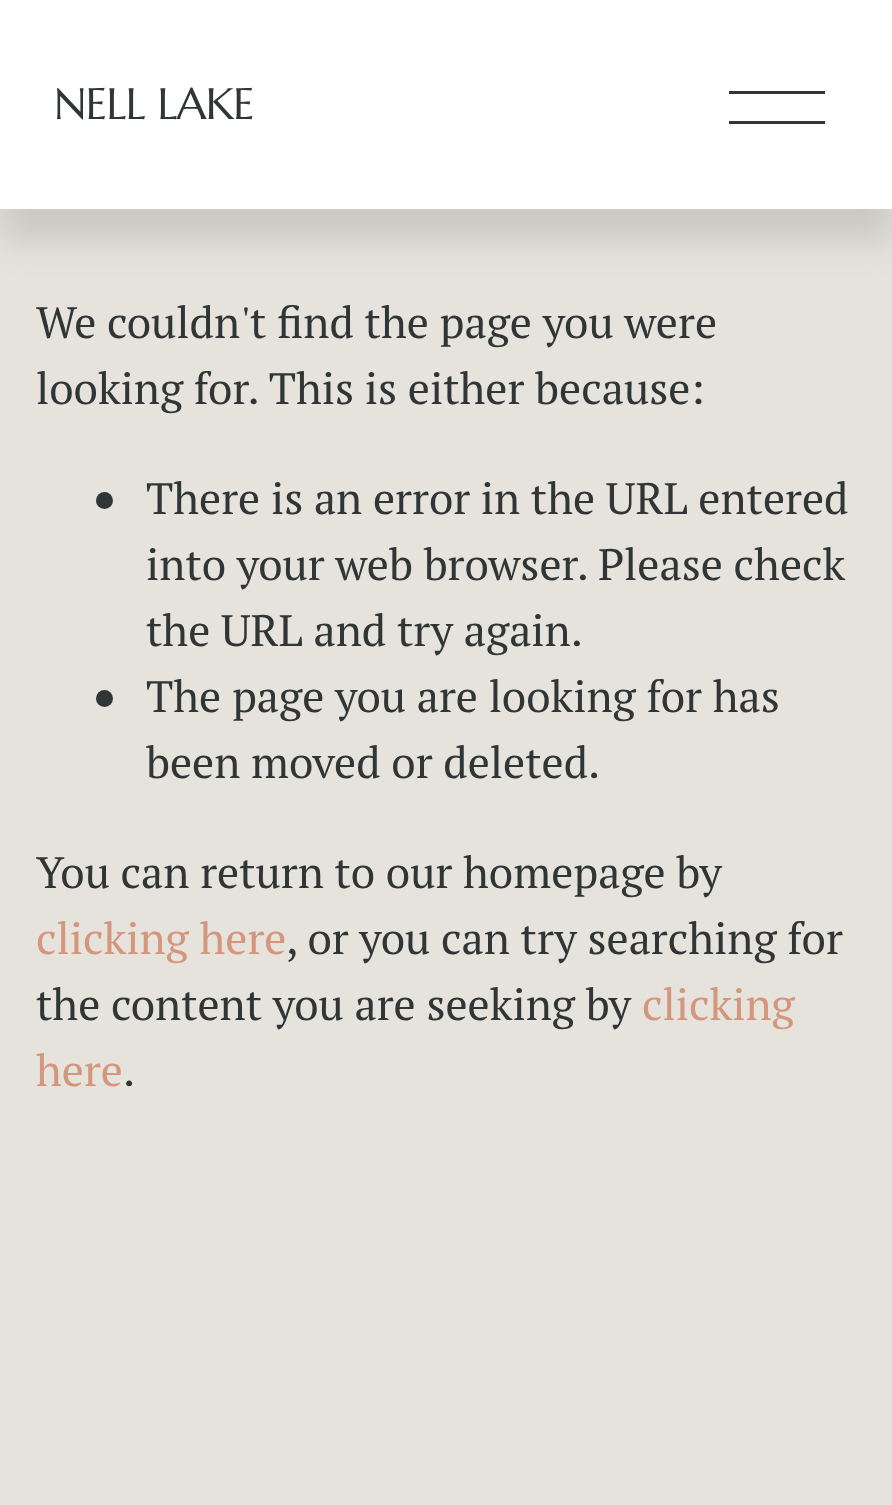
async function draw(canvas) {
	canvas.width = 892;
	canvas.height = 1505;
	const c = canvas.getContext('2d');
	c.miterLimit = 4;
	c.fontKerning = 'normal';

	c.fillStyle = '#e5e3dc';
	c.fillRect(0, 0, 892, 1505);
	c.fillStyle = '#cac9c3';
	c.filter = 'blur(16.5px)';
	c.beginPath();
	c.rect(0, 33, 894, 209);
	c.fill();
	c.filter = 'none';
	c.fillStyle = '#fff';
	c.fillRect(0, 0, 892, 209);
	c.letterSpacing = '-0.9px';
	c.font = '44px Marcellus';
	c.fillStyle = '#303636';
	c.fillText('NELL LAKE', 54, 119);
	c.fillRect(729, 91, 96, 3);
	c.fillRect(729, 121, 96, 3);
	c.letterSpacing = '0px';
	c.font = '44px PT Serif';
	c.fillText('We couldn\'t find the page you were', 36, 338);
	c.fillText('looking for. This is either because:', 36, 404);
	c.beginPath();
	c.arc(104.5, 500.5, 8.5, 0, 2 * Math.PI);
	c.fill();
	for (const [text, x, y] of [
		['There is an error in the URL entered', 146, 514],
		['into your web browser. Please check', 146, 580],
		['the URL and try again.', 146, 646],
	]) {
		c.fillText(text, x, y);
	}
	c.beginPath();
	c.arc(104.5, 698.5, 8.5, 0, 2 * Math.PI);
	c.fill();
	for (const [text, x, y] of [
		['The page you are looking for has', 146, 712],
		['been moved or deleted.', 146, 778],
		['You can return to our homepage by', 36, 888],
	]) {
		c.fillText(text, x, y);
	}
	c.fillStyle = '#d4967d';
	c.fillText('clicking here', 36, 954);
	c.fillStyle = '#303636';
	c.fillText(', or you can try searching for', 286, 954);
	c.fillText('the content you are seeking by', 36, 1020);
	c.fillStyle = '#d4967d';
	c.fillText('clicking', 642, 1020);
	c.fillText('here', 36, 1086);
	c.fillStyle = '#303636';
	c.fillText('.', 123, 1086);
}

draw(document.querySelector('canvas'));
